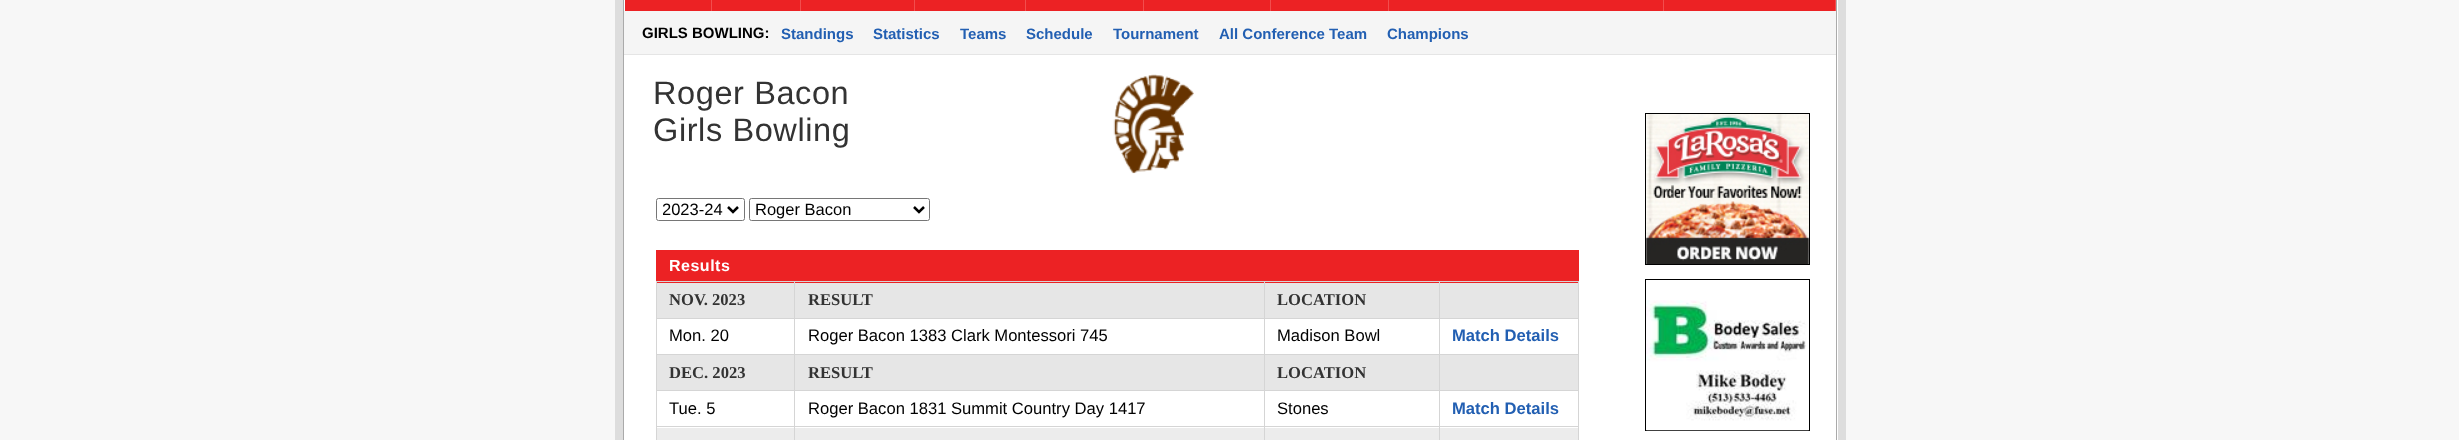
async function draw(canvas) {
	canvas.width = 2459;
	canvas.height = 440;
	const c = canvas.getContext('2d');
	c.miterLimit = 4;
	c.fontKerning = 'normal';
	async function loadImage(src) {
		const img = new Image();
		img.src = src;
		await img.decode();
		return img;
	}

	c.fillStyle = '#f7f7f7';
	c.fillRect(0, 0, 2459, 440);
	for (const [x, y, w, h, color] of [
		[615, 0, 1231, 440, '#ddd'],
		[624, 0, 1214, 440, '#fff'],
		[1836, 0, 1, 440, '#aaa'],
		[623, 0, 1, 440, '#aaa'],
		[625, 0, 1210, 11, '#ec2224'],
		[711, 0, 1, 13, '#f24d4d'],
		[800, 0, 1, 13, '#f24d4d'],
		[914, 0, 1, 13, '#f24d4d'],
		[1025, 0, 1, 13, '#f24d4d'],
		[1143, 0, 1, 13, '#f24d4d'],
		[1270, 0, 1, 13, '#f24d4d'],
		[1388, 0, 1, 13, '#f24d4d'],
		[1663, 0, 1, 13, '#f24d4d'],
		[1835, 0, 1, 13, '#f24d4d'],
		[624, 11, 1212, 43, '#f5f5f5'],
		[624, 54, 1212, 1, '#e5e5e5'],
	]) {
		c.fillStyle = color;
		c.fillRect(x, y, w, h);
	}
	c.font = 'bold 15px Liberation Sans';
	c.fillStyle = '#000';
	c.fillText('GIRLS BOWLING:', 642, 38);
	c.fillStyle = '#225fb2';
	for (const [text, x, y] of [
		['Standings', 781, 39],
		['Statistics', 873, 39],
		['Teams', 960, 39],
		['Schedule', 1026, 39],
		['Tournament', 1113, 39],
		['All Conference Team', 1219, 39],
		['Champions', 1387, 39],
	]) {
		c.fillText(text, x, y);
	}
	c.letterSpacing = '0.6px';
	c.font = '32.5px Liberation Sans';
	c.fillStyle = '#333';
	c.fillText('Roger Bacon', 653, 104);
	c.fillText('Girls Bowling', 653, 141);
	c.drawImage(await loadImage('img1.png'), 1113, 74, 81, 100);
	c.beginPath();
	c.roundRect(656.5, 198.5, 88, 22, 2);
	c.strokeStyle = '#767676';
	c.stroke();
	c.beginPath();
	c.moveTo(728, 207);
	c.lineTo(733, 212);
	c.lineTo(738, 207);
	c.strokeStyle = '#000';
	c.lineWidth = 2.5;
	c.stroke();
	c.save();
	c.beginPath();
	c.rect(663, 199, 61, 21);
	c.clip();
	c.letterSpacing = '0px';
	c.font = '16.5px Liberation Sans';
	c.fillStyle = '#000';
	c.fillText('2023-24', 662, 215);
	c.restore();
	c.beginPath();
	c.roundRect(749.5, 198.5, 180, 22, 2);
	c.strokeStyle = '#767676';
	c.lineWidth = 1;
	c.stroke();
	c.beginPath();
	c.moveTo(914, 207);
	c.lineTo(919, 212);
	c.lineTo(924, 207);
	c.strokeStyle = '#000';
	c.lineWidth = 2.5;
	c.stroke();
	c.letterSpacing = '0px';
	c.font = '16.5px Liberation Sans';
	c.fillStyle = '#000';
	c.fillText('Roger Bacon', 755, 215);
	c.fillStyle = '#ec2224';
	c.fillRect(656, 250, 923, 33);
	c.letterSpacing = '0.5px';
	c.font = 'bold 16px Liberation Sans';
	c.fillStyle = '#fff';
	c.fillText('Results', 669, 271);
	for (const [x, y, w, h, color] of [
		[657, 283, 137, 35, '#e6e6e6'],
		[1439, 281, 140, 1, '#d5d5d5'],
		[1439, 318, 140, 1, '#d5d5d5'],
		[1439, 354, 140, 1, '#d5d5d5'],
		[1439, 390, 140, 1, '#d5d5d5'],
		[1439, 426, 140, 1, '#d5d5d5'],
		[657, 428, 921, 12, '#ececec'],
		[1439, 426, 1, 14, '#d5d5d5'],
		[1264, 426, 176, 1, '#d5d5d5'],
		[1439, 390, 1, 38, '#d5d5d5'],
		[1264, 390, 176, 1, '#d5d5d5'],
		[1439, 354, 1, 37, '#d5d5d5'],
		[1264, 354, 176, 1, '#d5d5d5'],
		[1439, 318, 1, 37, '#d5d5d5'],
		[1264, 318, 176, 1, '#d5d5d5'],
		[1439, 281, 1, 38, '#d5d5d5'],
		[1264, 281, 176, 1, '#d5d5d5'],
		[1264, 426, 1, 14, '#d5d5d5'],
		[794, 426, 471, 1, '#d5d5d5'],
		[1264, 390, 1, 38, '#d5d5d5'],
		[794, 390, 471, 1, '#d5d5d5'],
		[1264, 354, 1, 37, '#d5d5d5'],
		[794, 354, 471, 1, '#d5d5d5'],
		[1264, 318, 1, 37, '#d5d5d5'],
		[794, 318, 471, 1, '#d5d5d5'],
		[1264, 281, 1, 38, '#d5d5d5'],
		[794, 281, 471, 1, '#d5d5d5'],
		[794, 426, 1, 14, '#d5d5d5'],
		[656, 426, 139, 1, '#d5d5d5'],
		[794, 390, 1, 38, '#d5d5d5'],
		[656, 390, 139, 1, '#d5d5d5'],
		[794, 354, 1, 37, '#d5d5d5'],
		[656, 354, 139, 1, '#d5d5d5'],
		[794, 318, 1, 37, '#d5d5d5'],
		[656, 318, 139, 1, '#d5d5d5'],
		[794, 281, 1, 38, '#d5d5d5'],
		[656, 281, 139, 1, '#d5d5d5'],
		[656, 426, 1, 14, '#d5d5d5'],
		[656, 390, 1, 38, '#d5d5d5'],
		[656, 354, 1, 37, '#d5d5d5'],
		[656, 318, 1, 37, '#d5d5d5'],
		[656, 281, 1, 38, '#d5d5d5'],
	]) {
		c.fillStyle = color;
		c.fillRect(x, y, w, h);
	}
	c.letterSpacing = '0px';
	c.font = 'bold 16.6px Liberation Serif';
	c.fillStyle = '#333';
	c.fillText('NOV. 2023', 669, 305);
	c.fillStyle = '#e6e6e6';
	c.fillRect(795, 283, 469, 35);
	c.fillStyle = '#333';
	c.fillText('RESULT', 808, 305);
	c.fillStyle = '#e6e6e6';
	c.fillRect(1265, 283, 174, 35);
	c.fillStyle = '#333';
	c.fillText('LOCATION', 1277, 305);
	for (const [x, y, w, h, color] of [
		[1440, 283, 138, 35, '#e6e6e6'],
		[1578, 426, 1, 14, '#d5d5d5'],
		[1578, 390, 1, 38, '#d5d5d5'],
		[1578, 354, 1, 37, '#d5d5d5'],
		[1578, 318, 1, 37, '#d5d5d5'],
		[1578, 281, 1, 38, '#d5d5d5'],
	]) {
		c.fillStyle = color;
		c.fillRect(x, y, w, h);
	}
	c.font = '16.6px Liberation Sans';
	c.fillStyle = '#000';
	for (const [text, x, y] of [
		['Mon. 20', 669, 341],
		['Roger Bacon 1383 Clark Montessori 745', 808, 341],
		['Madison Bowl', 1277, 341],
	]) {
		c.fillText(text, x, y);
	}
	c.font = 'bold 16.6px Liberation Sans';
	c.fillStyle = '#225fb2';
	c.fillText('Match Details', 1452, 341);
	c.fillStyle = '#e6e6e6';
	c.fillRect(657, 355, 137, 35);
	c.font = 'bold 16.6px Liberation Serif';
	c.fillStyle = '#333';
	c.fillText('DEC. 2023', 669, 378);
	c.fillStyle = '#e6e6e6';
	c.fillRect(795, 355, 469, 35);
	c.fillStyle = '#333';
	c.fillText('RESULT', 808, 378);
	c.fillStyle = '#e6e6e6';
	c.fillRect(1265, 355, 174, 35);
	c.fillStyle = '#333';
	c.fillText('LOCATION', 1277, 378);
	c.fillStyle = '#e6e6e6';
	c.fillRect(1440, 355, 138, 35);
	c.font = '16.6px Liberation Sans';
	c.fillStyle = '#000';
	for (const [text, x, y] of [
		['Tue. 5', 669, 414],
		['Roger Bacon 1831 Summit Country Day 1417', 808, 414],
		['Stones', 1277, 414],
	]) {
		c.fillText(text, x, y);
	}
	c.font = 'bold 16.6px Liberation Sans';
	c.fillStyle = '#225fb2';
	c.fillText('Match Details', 1452, 414);
	c.lineWidth = 1;
	c.strokeRect(1645.5, 113.5, 164, 151);
	c.drawImage(await loadImage('img2.png'), 1646, 114, 163, 150);
	c.strokeRect(1645.5, 279.5, 164, 151);
	c.drawImage(await loadImage('img3.png'), 1646, 300, 163, 131);
}

draw(document.querySelector('canvas'));
